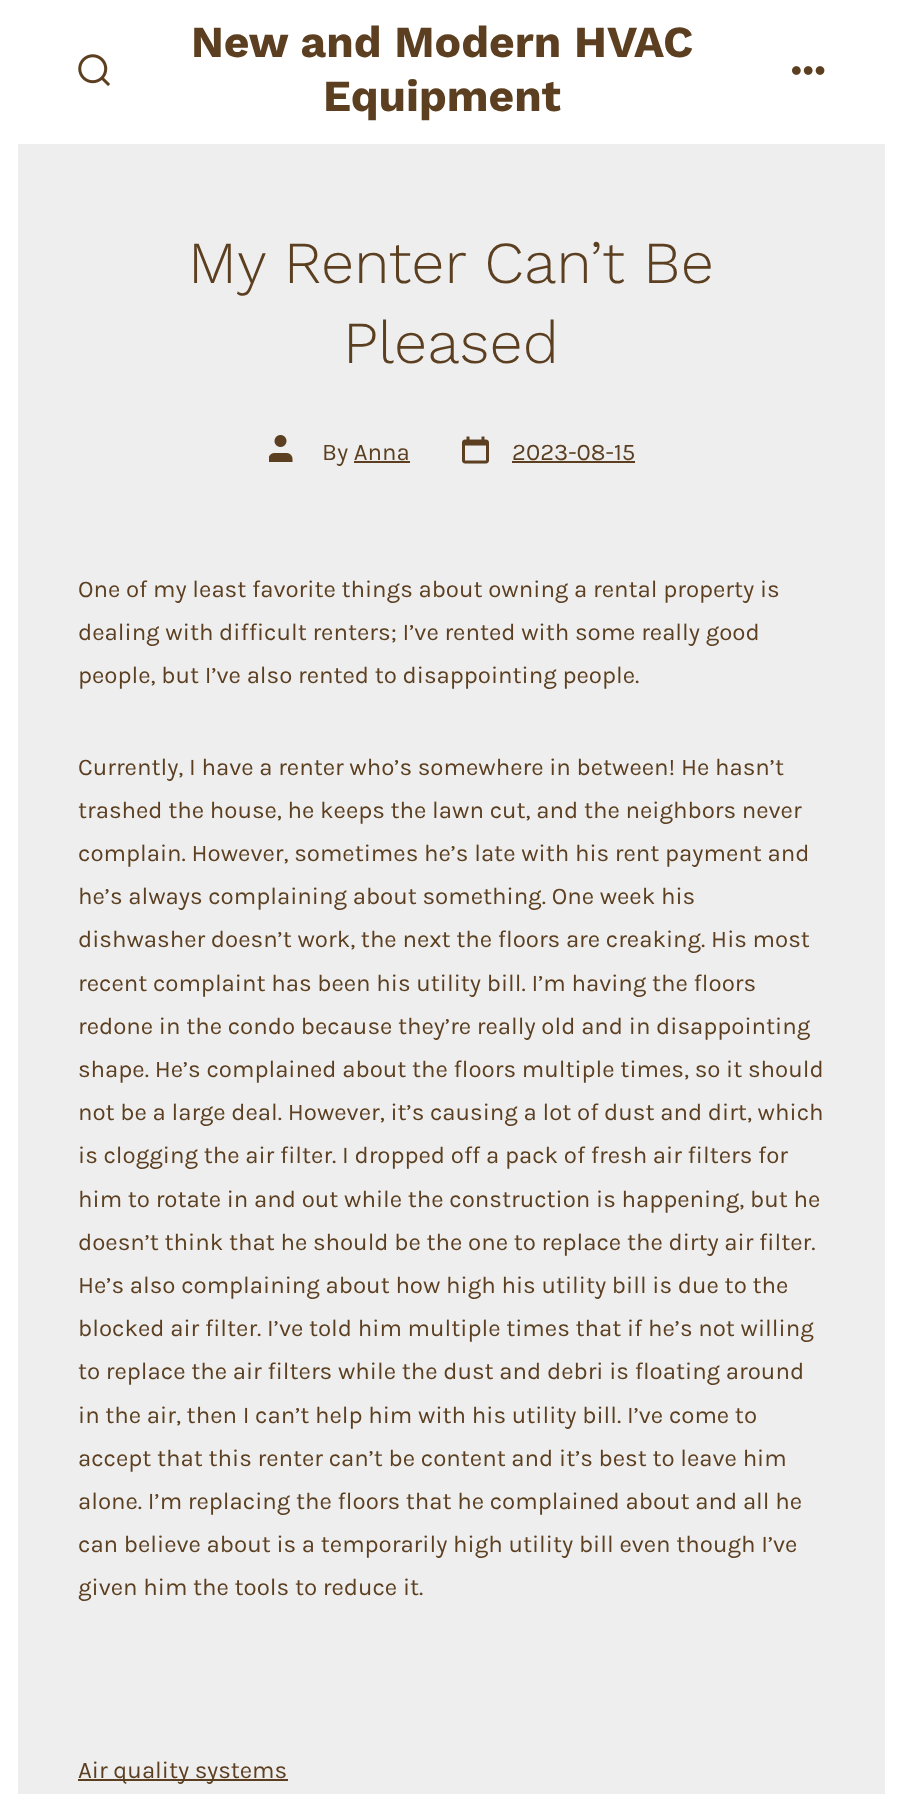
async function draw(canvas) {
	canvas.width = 902;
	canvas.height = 1794;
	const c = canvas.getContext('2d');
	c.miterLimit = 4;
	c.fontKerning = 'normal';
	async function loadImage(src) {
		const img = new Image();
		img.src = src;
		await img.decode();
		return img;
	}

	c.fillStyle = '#eee';
	c.fillRect(0, 0, 902, 1794);
	for (const [x, y, w, h, color] of [
		[885, 0, 17, 1794, '#fff'],
		[0, 0, 18, 1794, '#fff'],
		[18, 0, 867, 144, '#fff'],
	]) {
		c.fillStyle = color;
		c.fillRect(x, y, w, h);
	}
	c.drawImage(await loadImage('img1.png'), 78, 54, 32, 32);
	c.font = 'bold 44.4px Work Sans';
	c.fillStyle = '#5b3f20';
	c.fillText('New and Modern HVAC', 191, 57);
	c.fillText('Equipment', 323, 111);
	c.drawImage(await loadImage('img2.png'), 792, 66, 33, 9);
	c.font = '300 59.5px Work Sans';
	c.fillText('My Renter Can’t Be', 188, 283);
	c.fillText('Pleased', 343, 363);
	c.drawImage(await loadImage('img3.png'), 269, 435, 24, 27);
	c.font = '24px Karla';
	c.fillText('By Anna', 322, 460);
	c.fillRect(354, 461, 56, 2);
	c.drawImage(await loadImage('img4.png'), 462, 436, 27, 28);
	c.fillText('2023-08-15', 512, 460);
	c.fillRect(512, 461, 123, 2);
	for (const [text, x, y] of [
		['One of my least favorite things about owning a rental property is', 78, 597],
		['dealing with difficult renters; I’ve rented with some really good', 78, 640],
		['people, but I’ve also rented to disappointing people.', 78, 683],
		['Currently, I have a renter who’s somewhere in between! He hasn’t', 78, 775],
		['trashed the house, he keeps the lawn cut, and the neighbors never', 78, 818],
		['complain. However, sometimes he’s late with his rent payment and', 78, 861],
		['he’s always complaining about something. One week his', 78, 904],
		['dishwasher doesn’t work, the next the floors are creaking. His most', 78, 947],
		['recent complaint has been his utility bill. I’m having the floors', 78, 991],
		['redone in the condo because they’re really old and in disappointing', 78, 1034],
		['shape. He’s complained about the floors multiple times, so it should', 78, 1077],
		['not be a large deal. However, it’s causing a lot of dust and dirt, which', 78, 1120],
		['is clogging the air filter. I dropped off a pack of fresh air filters for', 78, 1163],
		['him to rotate in and out while the construction is happening, but he', 78, 1207],
		['doesn’t think that he should be the one to replace the dirty air filter.', 78, 1250],
		['He’s also complaining about how high his utility bill is due to the', 78, 1293],
		['blocked air filter. I’ve told him multiple times that if he’s not willing', 78, 1336],
		['to replace the air filters while the dust and debri is floating around', 78, 1379],
		['in the air, then I can’t help him with his utility bill. I’ve come to', 78, 1423],
		['accept that this renter can’t be content and it’s best to leave him', 78, 1466],
		['alone. I’m replacing the floors that he complained about and all he', 78, 1509],
		['can believe about is a temporarily high utility bill even though I’ve', 78, 1552],
		['given him the tools to reduce it.', 78, 1595],
	]) {
		c.fillText(text, x, y);
	}
	c.fillRect(78, 1779, 210, 2);
	c.fillText('Air quality systems', 78, 1778);
}

draw(document.querySelector('canvas'));
